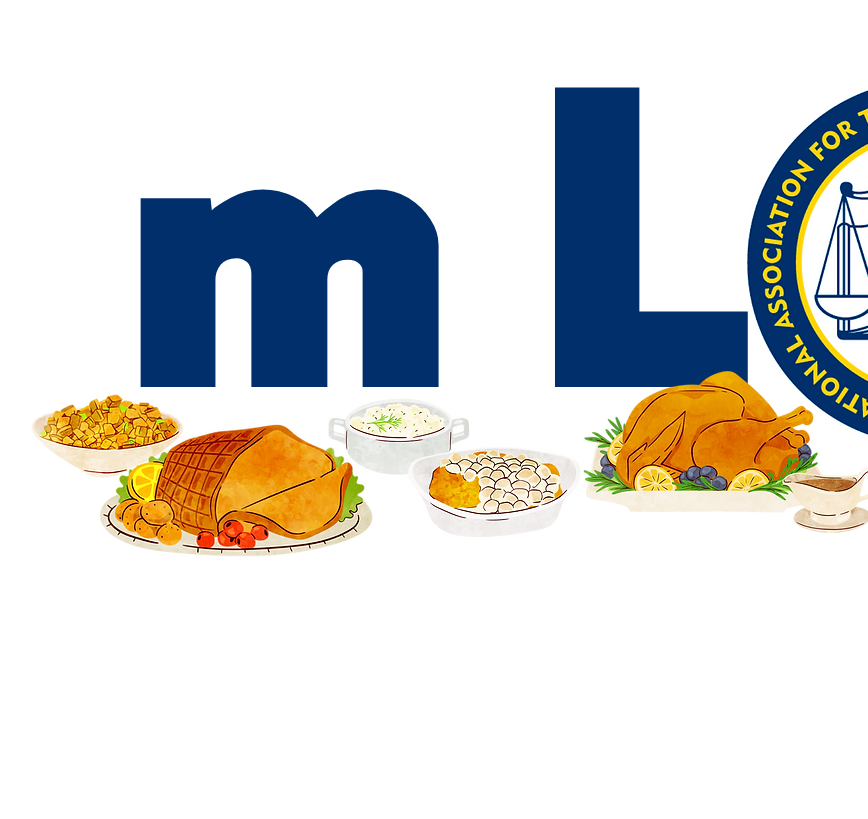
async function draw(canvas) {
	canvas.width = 868;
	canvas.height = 819;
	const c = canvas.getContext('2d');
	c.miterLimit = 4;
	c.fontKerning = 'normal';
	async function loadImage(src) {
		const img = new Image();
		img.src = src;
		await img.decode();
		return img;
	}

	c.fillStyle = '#fff';
	c.fillRect(0, 0, 868, 819);
	c.font = 'bold 400px "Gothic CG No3"';
	c.fillStyle = '#002f6c';
	c.fillText('m', 117, 387);
	c.fillText('L', 521, 387);
	c.drawImage(await loadImage('img1.png'), 746, 90, 122, 345);
	c.drawImage(await loadImage('img3.png'), 328, 398, 253, 139);
	c.drawImage(await loadImage('img2.png'), 31, 394, 342, 163);
	c.drawImage(await loadImage('img4.png'), 583, 371, 285, 162);
}

draw(document.querySelector('canvas'));
